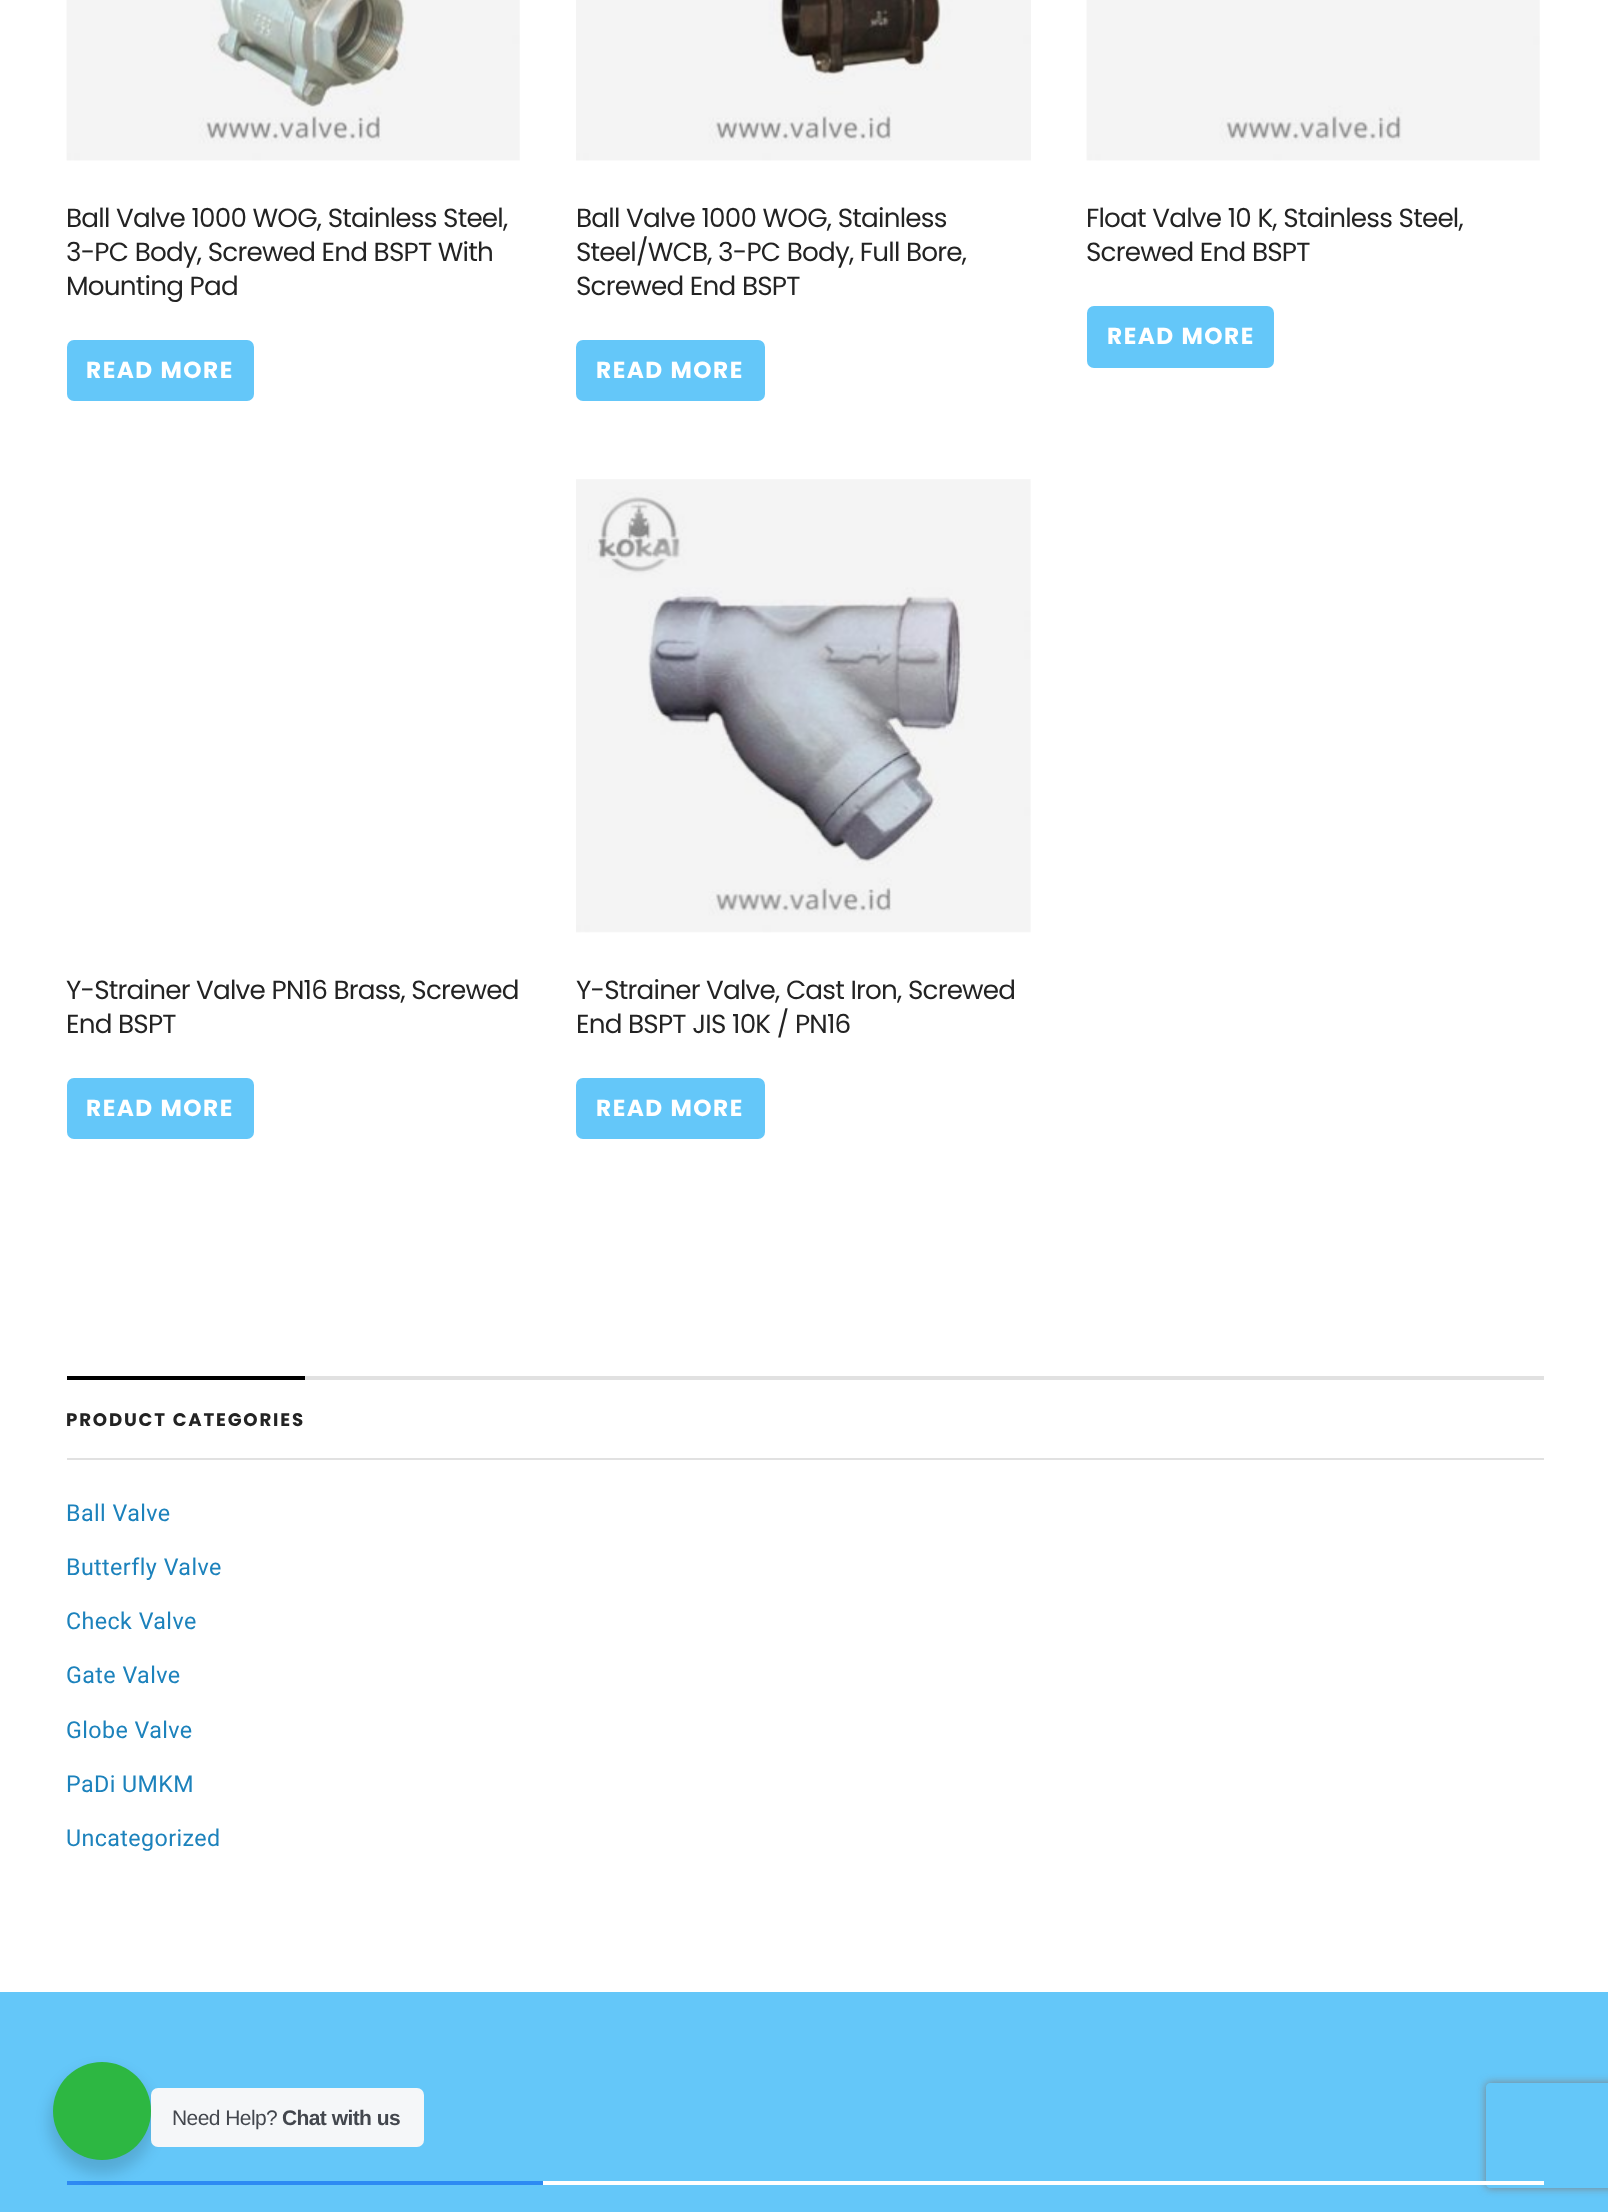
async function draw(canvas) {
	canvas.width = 1608;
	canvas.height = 2212;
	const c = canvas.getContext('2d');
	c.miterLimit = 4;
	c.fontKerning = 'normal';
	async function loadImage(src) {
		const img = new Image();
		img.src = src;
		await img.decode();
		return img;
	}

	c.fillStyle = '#fff';
	c.fillRect(0, 0, 1608, 2212);
	c.drawImage(await loadImage('img1.png'), 66, 0, 454, 161);
	c.letterSpacing = '-0.8px';
	c.wordSpacing = '0.25px';
	c.font = '26.25px Poppins';
	c.fillStyle = '#232323';
	for (const [text, x, y] of [
		['Ball Valve 1000 WOG, Stainless Steel,', 66, 227],
		['3-PC Body, Screwed End BSPT With', 66, 261],
		['Mounting Pad', 66, 295],
	]) {
		c.fillText(text, x, y);
	}
	c.fillStyle = '#64c7f9';
	c.beginPath();
	c.roundRect(67, 340, 187, 61, 7);
	c.fill();
	c.letterSpacing = '1.5px';
	c.font = 'bold 23.25px Poppins';
	c.fillStyle = '#fff';
	c.fillText('READ MORE', 86, 378);
	c.drawImage(await loadImage('img2.png'), 576, 0, 455, 161);
	c.letterSpacing = '-0.8px';
	c.font = '26.25px Poppins';
	c.fillStyle = '#232323';
	for (const [text, x, y] of [
		['Ball Valve 1000 WOG, Stainless', 576, 227],
		['Steel/WCB, 3-PC Body, Full Bore,', 576, 261],
		['Screwed End BSPT', 576, 295],
	]) {
		c.fillText(text, x, y);
	}
	c.fillStyle = '#64c7f9';
	c.beginPath();
	c.roundRect(576, 340, 189, 61, 7);
	c.fill();
	c.letterSpacing = '1.5px';
	c.font = 'bold 23.25px Poppins';
	c.fillStyle = '#fff';
	c.fillText('READ MORE', 596, 378);
	c.drawImage(await loadImage('img3.png'), 1086, 0, 454, 161);
	c.letterSpacing = '-0.8px';
	c.font = '26.25px Poppins';
	c.fillStyle = '#232323';
	c.fillText('Float Valve 10 K, Stainless Steel,', 1086, 227);
	c.fillText('Screwed End BSPT', 1086, 261);
	c.fillStyle = '#64c7f9';
	c.beginPath();
	c.roundRect(1087, 306, 187, 62, 7);
	c.fill();
	c.letterSpacing = '1.5px';
	c.font = 'bold 23.25px Poppins';
	c.fillStyle = '#fff';
	c.fillText('READ MORE', 1107, 344);
	c.letterSpacing = '-0.8px';
	c.font = '26.25px Poppins';
	c.fillStyle = '#232323';
	c.fillText('Y-Strainer Valve PN16 Brass, Screwed', 66, 999);
	c.fillText('End BSPT', 66, 1033);
	c.fillStyle = '#64c7f9';
	c.beginPath();
	c.roundRect(67, 1078, 187, 61, 7);
	c.fill();
	c.letterSpacing = '1.5px';
	c.font = 'bold 23.25px Poppins';
	c.fillStyle = '#fff';
	c.fillText('READ MORE', 86, 1116);
	c.drawImage(await loadImage('img4.png'), 576, 479, 455, 454);
	c.letterSpacing = '-0.8px';
	c.font = '26.25px Poppins';
	c.fillStyle = '#232323';
	c.fillText('Y-Strainer Valve, Cast Iron, Screwed', 576, 999);
	c.fillText('End BSPT JIS 10K / PN16', 576, 1033);
	c.fillStyle = '#64c7f9';
	c.beginPath();
	c.roundRect(576, 1078, 189, 61, 7);
	c.fill();
	c.letterSpacing = '1.5px';
	c.font = 'bold 23.25px Poppins';
	c.fillStyle = '#fff';
	c.fillText('READ MORE', 596, 1116);
	for (const [x, y, w, h, color] of [
		[305, 1376, 1239, 4, '#e1e1e1'],
		[67, 1458, 1477, 2, '#e1e1e1'],
		[67, 1376, 238, 4, '#000'],
	]) {
		c.fillStyle = color;
		c.fillRect(x, y, w, h);
	}
	c.letterSpacing = '1.8px';
	c.font = 'bold 18.2px Poppins';
	c.fillStyle = '#232323';
	c.fillText('PRODUCT CATEGORIES', 66, 1426);
	c.letterSpacing = '0.4px';
	c.font = '23.25px Roboto';
	c.fillStyle = '#1c82bc';
	for (const [text, x, y] of [
		['Ball Valve', 66, 1521],
		['Butterfly Valve', 66, 1575],
		['Check Valve', 66, 1629],
		['Gate Valve', 66, 1683],
		['Globe Valve', 66, 1738],
		['PaDi UMKM', 66, 1792],
	]) {
		c.fillText(text, x, y);
	}
	c.wordSpacing = '0px';
	c.fillText('Uncategorized', 66, 1846);
	c.fillStyle = '#64c7f9';
	c.fillRect(0, 1992, 1608, 220);
	c.save();
	c.beginPath();
	c.moveTo(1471, 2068);
	c.lineTo(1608, 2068);
	c.lineTo(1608, 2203);
	c.lineTo(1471, 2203);
	c.closePath();
	c.moveTo(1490, 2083);
	c.lineTo(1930, 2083);
	c.bezierCurveTo(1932, 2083, 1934, 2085, 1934, 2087);
	c.lineTo(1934, 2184);
	c.bezierCurveTo(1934, 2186, 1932, 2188, 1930, 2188);
	c.lineTo(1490, 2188);
	c.bezierCurveTo(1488, 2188, 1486, 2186, 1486, 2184);
	c.lineTo(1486, 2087);
	c.bezierCurveTo(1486, 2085, 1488, 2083, 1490, 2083);
	c.closePath();
	c.clip('evenodd');
	c.fillStyle = '#808080';
	c.filter = 'blur(4.5px)';
	c.beginPath();
	c.roundRect(1486, 2083, 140, 105, 4);
	c.fill();
	c.filter = 'none';
	c.restore();
	c.fillStyle = '#fff';
	c.fillRect(543, 2181, 1001, 4);
	c.fillStyle = '#2d8af3';
	c.fillRect(67, 2181, 476, 4);
	c.fillStyle = '#00000024';
	c.filter = 'blur(7px)';
	c.beginPath();
	c.roundRect(49, 2069, 105, 105, 52.5);
	c.fill();
	c.filter = 'none';
	c.fillStyle = '#2db742';
	c.beginPath();
	c.arc(102, 2111, 49, 0, 2 * Math.PI);
	c.fill();
	c.fillStyle = '#f5f7f9';
	c.beginPath();
	c.roundRect(151, 2088, 273, 59, 7);
	c.fill();
	c.letterSpacing = '-0.6px';
	c.wordSpacing = '0.25px';
	c.font = '21px Liberation Sans';
	c.fillStyle = '#43474e';
	c.fillText('Need Help?', 172, 2125);
	c.font = 'bold 21px Liberation Sans';
	c.fillText('Chat with us', 282, 2125);
}

draw(document.querySelector('canvas'));
